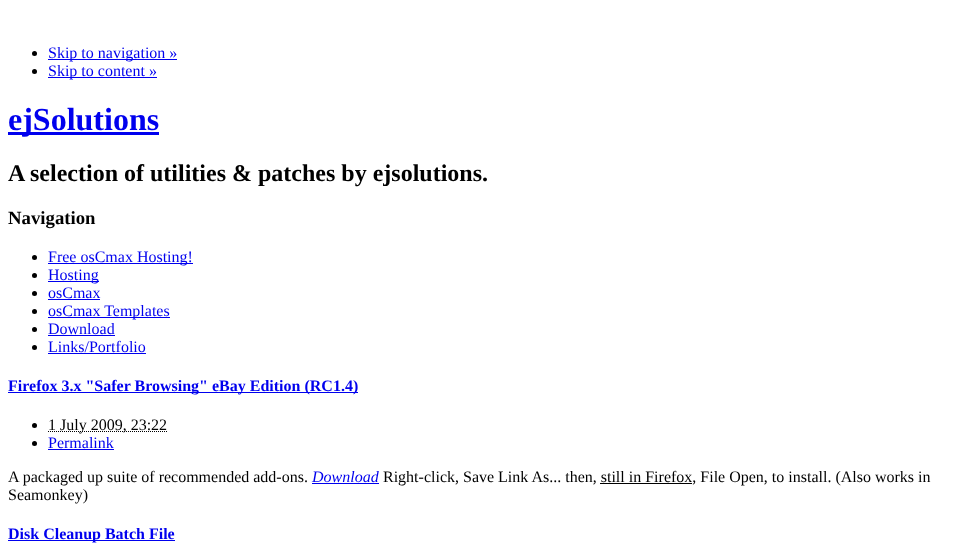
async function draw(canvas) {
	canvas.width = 968;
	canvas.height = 555;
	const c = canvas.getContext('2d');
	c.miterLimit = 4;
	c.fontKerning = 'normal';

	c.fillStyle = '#fff';
	c.fillRect(0, 0, 968, 555);
	c.fillStyle = '#000';
	c.beginPath();
	c.arc(34.5, 53.5, 2.5, 0, 2 * Math.PI);
	c.fill();
	c.fillStyle = '#00e';
	c.fillRect(48, 59, 129, 1);
	c.font = '16px Liberation Serif';
	c.fillText('Skip to navigation »', 48, 58);
	c.fillStyle = '#000';
	c.beginPath();
	c.arc(34.5, 71.5, 2.5, 0, 2 * Math.PI);
	c.fill();
	c.fillStyle = '#00e';
	c.fillRect(48, 77, 109, 1);
	c.fillText('Skip to content »', 48, 76);
	c.fillRect(8, 132, 151, 3);
	c.font = 'bold 32px Liberation Serif';
	c.fillText('ejSolutions', 8, 130);
	c.font = 'bold 24px Liberation Serif';
	c.fillStyle = '#000';
	c.fillText('A selection of utilities & patches by ejsolutions.', 8, 181);
	c.font = 'bold 18.75px Liberation Serif';
	c.fillText('Navigation', 8, 224);
	c.beginPath();
	c.arc(34.5, 257.5, 2.5, 0, 2 * Math.PI);
	c.fill();
	c.fillStyle = '#00e';
	c.fillRect(48, 263, 145, 1);
	c.font = '16px Liberation Serif';
	c.fillText('Free osCmax Hosting!', 48, 262);
	c.fillStyle = '#000';
	c.beginPath();
	c.arc(34.5, 275.5, 2.5, 0, 2 * Math.PI);
	c.fill();
	c.fillStyle = '#00e';
	c.fillRect(48, 281, 51, 1);
	c.fillText('Hosting', 48, 280);
	c.fillStyle = '#000';
	c.beginPath();
	c.arc(34.5, 293.5, 2.5, 0, 2 * Math.PI);
	c.fill();
	c.fillStyle = '#00e';
	c.fillText('osCmax', 48, 298);
	c.fillRect(48, 299, 52, 1);
	c.fillStyle = '#000';
	c.beginPath();
	c.arc(34.5, 311.5, 2.5, 0, 2 * Math.PI);
	c.fill();
	c.fillStyle = '#00e';
	c.fillRect(48, 317, 122, 1);
	c.fillText('osCmax Templates', 48, 316);
	c.fillStyle = '#000';
	c.beginPath();
	c.arc(34.5, 329.5, 2.5, 0, 2 * Math.PI);
	c.fill();
	c.fillStyle = '#00e';
	c.fillText('Download', 48, 334);
	c.fillRect(48, 335, 67, 1);
	c.fillStyle = '#000';
	c.beginPath();
	c.arc(34.5, 347.5, 2.5, 0, 2 * Math.PI);
	c.fill();
	c.fillStyle = '#00e';
	c.fillText('Links/Portfolio', 48, 352);
	c.fillRect(48, 353, 98, 1);
	c.fillRect(8, 392, 350, 1);
	c.font = 'bold 16px Liberation Serif';
	c.fillText('Firefox 3.x "Safer Browsing" eBay Edition (RC1.4)', 8, 391);
	c.fillStyle = '#000';
	c.beginPath();
	c.arc(34.5, 425.5, 2.5, 0, 2 * Math.PI);
	c.fill();
	c.beginPath();
	c.moveTo(48, 431.5);
	c.lineTo(167, 431.5);
	c.strokeStyle = '#000';
	c.setLineDash([1, 1]);
	c.stroke();
	c.font = '16px Liberation Serif';
	c.fillText('1 July 2009, 23:22', 48, 430);
	c.beginPath();
	c.arc(34.5, 443.5, 2.5, 0, 2 * Math.PI);
	c.fill();
	c.fillStyle = '#00e';
	c.fillText('Permalink', 48, 448);
	c.fillRect(48, 449, 66, 1);
	c.fillStyle = '#000';
	c.fillText('A packaged up suite of recommended add-ons.', 8, 482);
	c.font = 'italic 16px Liberation Serif';
	c.fillStyle = '#00e';
	c.fillText('Download', 312, 482);
	c.fillRect(312, 483, 67, 1);
	c.font = '16px Liberation Serif';
	c.fillStyle = '#000';
	c.fillText('Right-click, Save Link As... then, still in Firefox, File Open, to install. (Also works in', 383, 482);
	c.fillRect(600, 483, 92, 1);
	c.fillText('Seamonkey)', 8, 500);
	c.fillStyle = '#00e';
	c.fillRect(8, 540, 167, 1);
	c.font = 'bold 16px Liberation Serif';
	c.fillText('Disk Cleanup Batch File', 8, 539);
}

draw(document.querySelector('canvas'));
